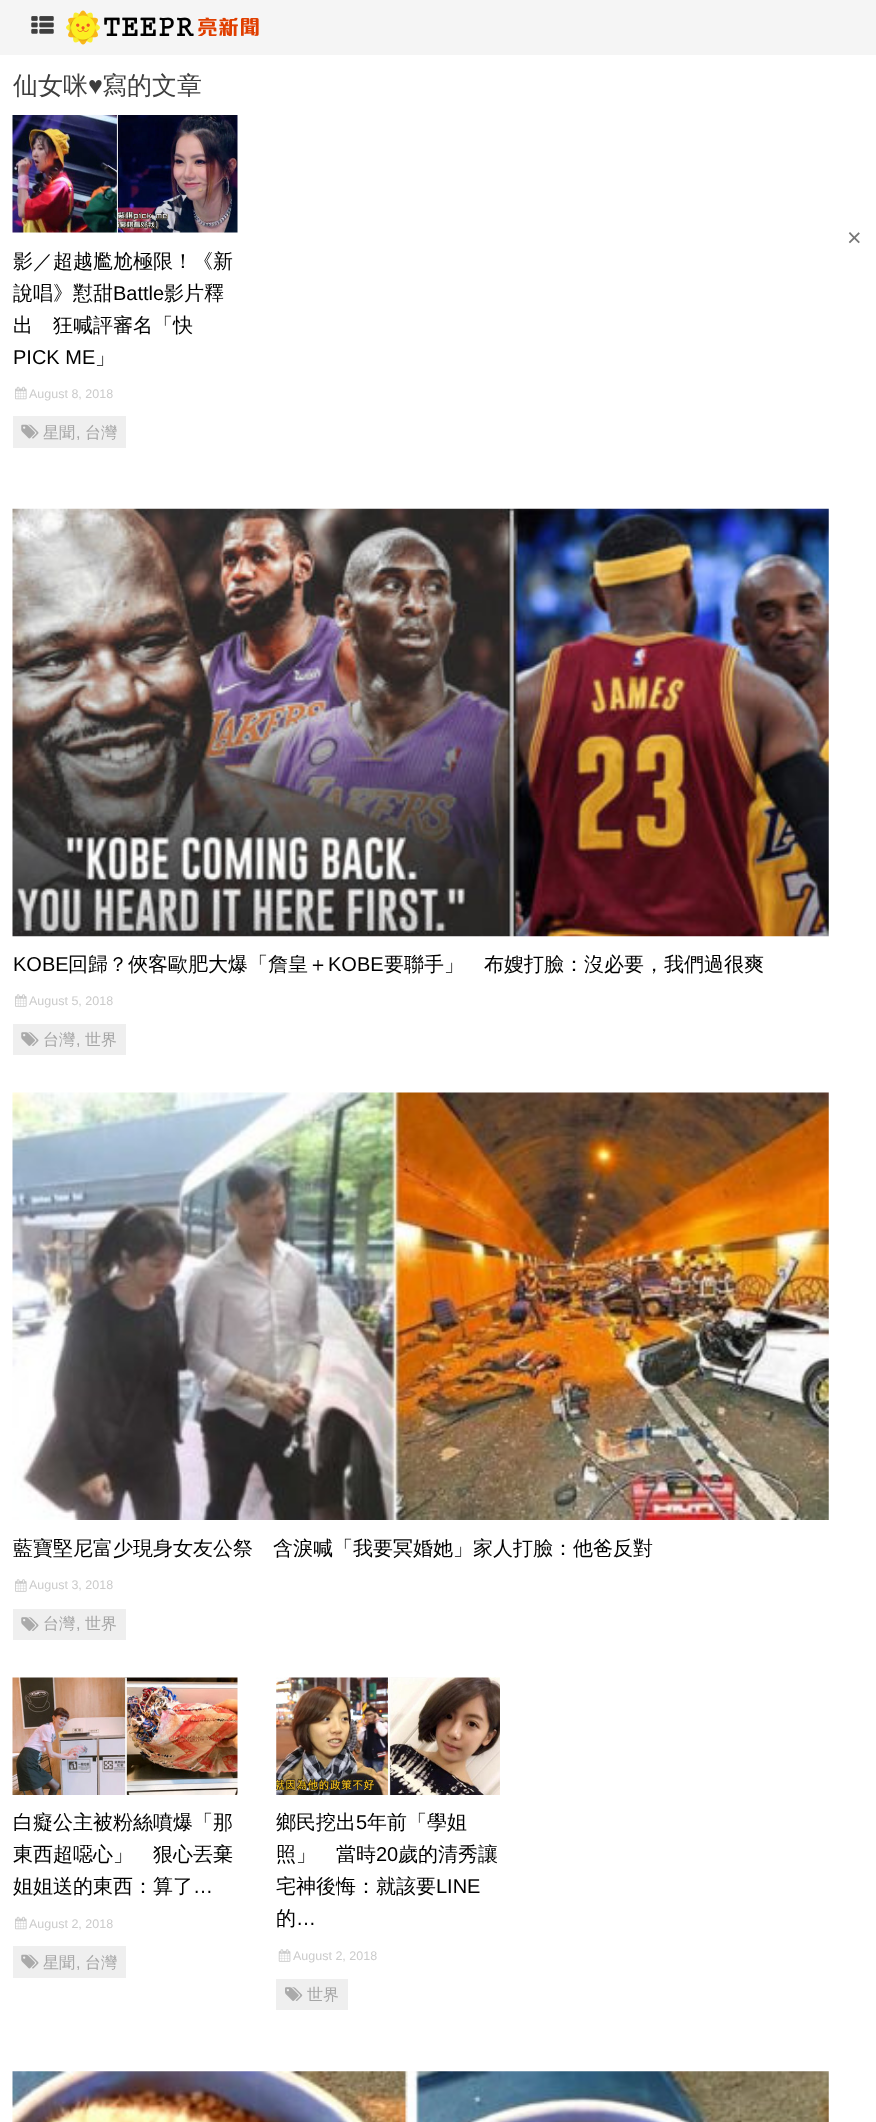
async function draw(canvas) {
	canvas.width = 876;
	canvas.height = 2122;
	const c = canvas.getContext('2d');
	c.miterLimit = 4;
	c.fontKerning = 'normal';
	async function loadImage(src) {
		const img = new Image();
		img.src = src;
		await img.decode();
		return img;
	}

	c.fillStyle = '#fff';
	c.fillRect(0, 0, 876, 2122);
	c.fillStyle = '#f5f5f5';
	c.fillRect(0, 0, 876, 55);
	c.drawImage(await loadImage('img1.png'), 31, 16, 23, 18);
	c.drawImage(await loadImage('img2.png'), 66, 10, 193, 35);
	c.font = '500 25px WenQuanYi Zen Hei';
	c.fillStyle = '#3e3e3e';
	c.fillText('仙女咪', 13, 94);
	c.font = '25px Liberation Sans';
	c.fillText('♥', 88, 94);
	c.font = '500 25px WenQuanYi Zen Hei';
	c.fillText('寫的文章', 102, 94);
	c.drawImage(await loadImage('img3.png'), 12, 115, 226, 118);
	c.font = '500 20px WenQuanYi Zen Hei';
	c.fillStyle = '#000';
	c.fillText('影／超越尷尬極限！《新', 13, 268);
	c.fillText('說唱》懟甜', 13, 300);
	c.font = '20px Liberation Sans';
	c.fillText('Battle', 113, 300);
	c.font = '500 20px WenQuanYi Zen Hei';
	c.fillText('影片釋', 164, 300);
	c.fillText('出　狂喊評審名「快', 13, 332);
	c.font = '20px Liberation Sans';
	c.fillText('PICK ME', 13, 364);
	c.font = '500 20px WenQuanYi Zen Hei';
	c.fillText('」', 95, 364);
	c.drawImage(await loadImage('img4.png'), 15, 386, 12, 14);
	c.font = '12.5px Liberation Sans';
	c.fillStyle = '#cbcbcb';
	c.fillText('August 8, 2018', 29, 398);
	c.fillStyle = '#efefef';
	c.fillRect(13, 416, 113, 32);
	c.drawImage(await loadImage('img5.png'), 21, 424, 18, 15);
	c.font = '500 16px WenQuanYi Zen Hei';
	c.fillStyle = '#a5a5a5';
	c.fillText('星聞', 43, 438);
	c.font = '16px Liberation Sans';
	c.fillText(',', 76, 438);
	c.font = '500 16px WenQuanYi Zen Hei';
	c.fillText('台灣', 85, 438);
	c.drawImage(await loadImage('img6.png'), 12, 508, 817, 429);
	c.font = '20px Liberation Sans';
	c.fillStyle = '#000';
	c.fillText('KOBE', 13, 971);
	c.font = '500 20px WenQuanYi Zen Hei';
	c.fillText('回歸？俠客歐肥大爆「詹皇＋', 68, 971);
	c.font = '20px Liberation Sans';
	c.fillText('KOBE', 328, 971);
	c.font = '500 20px WenQuanYi Zen Hei';
	c.fillText('要聯手」　布嫂打臉：沒必要，我們過很爽', 384, 971);
	c.drawImage(await loadImage('img7.png'), 15, 994, 12, 13);
	c.font = '12.5px Liberation Sans';
	c.fillStyle = '#cbcbcb';
	c.fillText('August 5, 2018', 29, 1005);
	c.fillStyle = '#efefef';
	c.fillRect(13, 1024, 113, 31);
	c.drawImage(await loadImage('img8.png'), 21, 1032, 18, 14);
	c.font = '500 16px WenQuanYi Zen Hei';
	c.fillStyle = '#a5a5a5';
	c.fillText('台灣', 43, 1045);
	c.font = '16px Liberation Sans';
	c.fillText(',', 76, 1045);
	c.font = '500 16px WenQuanYi Zen Hei';
	c.fillText('世界', 85, 1045);
	c.drawImage(await loadImage('img9.png'), 12, 1092, 817, 428);
	c.font = '500 20px WenQuanYi Zen Hei';
	c.fillStyle = '#000';
	c.fillText('藍寶堅尼富少現身女友公祭　含淚喊「我要冥婚她」家人打臉：他爸反對', 13, 1555);
	c.drawImage(await loadImage('img7.png'), 15, 1579, 12, 13);
	c.font = '12.5px Liberation Sans';
	c.fillStyle = '#cbcbcb';
	c.fillText('August 3, 2018', 29, 1589);
	c.fillStyle = '#efefef';
	c.fillRect(13, 1609, 113, 31);
	c.drawImage(await loadImage('img8.png'), 21, 1617, 18, 14);
	c.font = '500 16px WenQuanYi Zen Hei';
	c.fillStyle = '#a5a5a5';
	c.fillText('台灣', 43, 1629);
	c.font = '16px Liberation Sans';
	c.fillText(',', 76, 1629);
	c.font = '500 16px WenQuanYi Zen Hei';
	c.fillText('世界', 85, 1629);
	c.drawImage(await loadImage('img10.png'), 12, 1677, 226, 118);
	c.font = '500 20px WenQuanYi Zen Hei';
	c.fillStyle = '#000';
	for (const [text, x, y] of [
		['白癡公主被粉絲噴爆「那', 13, 1829],
		['東西超噁心」　狠心丟棄', 13, 1861],
		['姐姐送的東西：算了', 13, 1893],
	]) {
		c.fillText(text, x, y);
	}
	c.font = '20px Liberation Sans';
	c.fillText('…', 193, 1893);
	c.drawImage(await loadImage('img4.png'), 15, 1916, 12, 14);
	c.font = '12.5px Liberation Sans';
	c.fillStyle = '#cbcbcb';
	c.fillText('August 2, 2018', 29, 1928);
	c.fillStyle = '#efefef';
	c.fillRect(13, 1946, 113, 32);
	c.drawImage(await loadImage('img5.png'), 21, 1954, 18, 15);
	c.font = '500 16px WenQuanYi Zen Hei';
	c.fillStyle = '#a5a5a5';
	c.fillText('星聞', 43, 1968);
	c.font = '16px Liberation Sans';
	c.fillText(',', 76, 1968);
	c.font = '500 16px WenQuanYi Zen Hei';
	c.fillText('台灣', 85, 1968);
	c.drawImage(await loadImage('img11.png'), 276, 1677, 224, 118);
	c.font = '500 20px WenQuanYi Zen Hei';
	c.fillStyle = '#000';
	c.fillText('鄉民挖出', 276, 1829);
	c.font = '20px Liberation Sans';
	c.fillText('5', 356, 1829);
	c.font = '500 20px WenQuanYi Zen Hei';
	c.fillText('年前「學姐', 367, 1829);
	c.fillText('照」　當時', 276, 1861);
	c.font = '20px Liberation Sans';
	c.fillText('20', 376, 1861);
	c.font = '500 20px WenQuanYi Zen Hei';
	c.fillText('歲的清秀讓', 398, 1861);
	c.fillText('宅神後悔：就該要', 276, 1893);
	c.font = '20px Liberation Sans';
	c.fillText('LINE', 436, 1893);
	c.font = '500 20px WenQuanYi Zen Hei';
	c.fillText('的', 276, 1925);
	c.font = '20px Liberation Sans';
	c.fillText('…', 296, 1925);
	c.drawImage(await loadImage('img12.png'), 278, 1949, 13, 13);
	c.font = '12.5px Liberation Sans';
	c.fillStyle = '#cbcbcb';
	c.fillText('August 2, 2018', 293, 1960);
	c.fillStyle = '#efefef';
	c.fillRect(276, 1979, 72, 31);
	c.drawImage(await loadImage('img13.png'), 285, 1987, 18, 14);
	c.font = '500 16px WenQuanYi Zen Hei';
	c.fillStyle = '#a5a5a5';
	c.fillText('世界', 307, 2000);
	c.drawImage(await loadImage('img14.png'), 12, 2071, 817, 51);
	c.font = '25px Liberation Sans';
	c.fillStyle = '#777';
	c.fillText('×', 847, 246);
}

draw(document.querySelector('canvas'));
